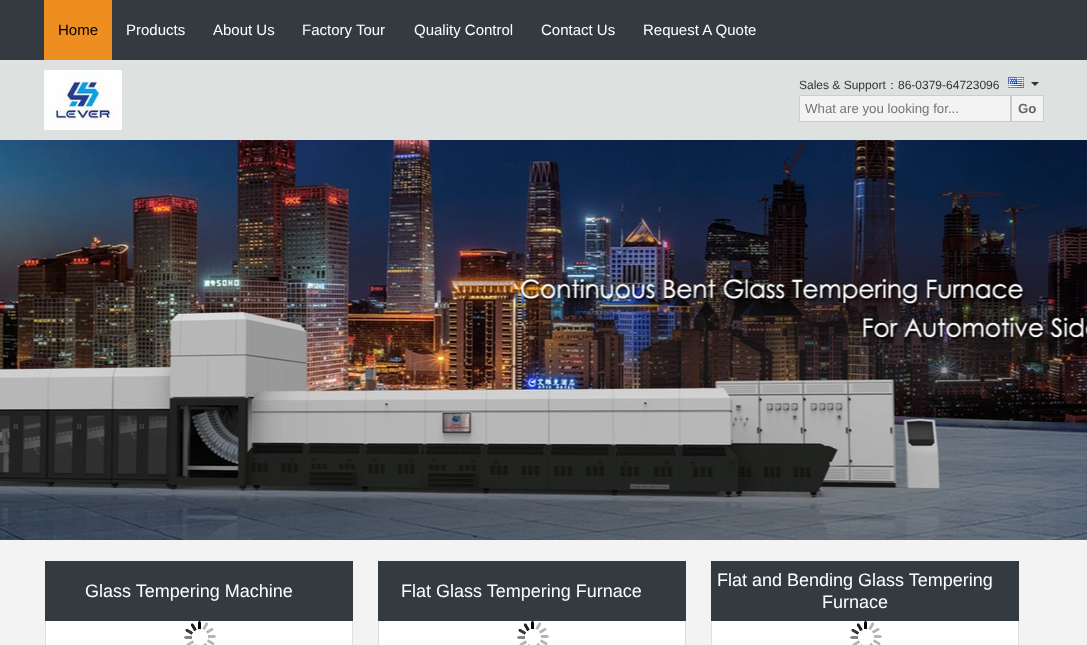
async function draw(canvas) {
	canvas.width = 1087;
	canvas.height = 645;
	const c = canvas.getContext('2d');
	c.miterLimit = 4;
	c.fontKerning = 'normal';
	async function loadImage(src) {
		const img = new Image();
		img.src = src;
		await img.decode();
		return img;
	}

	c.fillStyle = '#333b41';
	c.fillRect(0, 0, 1087, 645);
	c.fillStyle = '#ee8e21';
	c.fillRect(44, 0, 68, 60);
	c.font = '15px Liberation Sans';
	c.fillStyle = '#000';
	c.fillText('Home', 58, 35);
	c.fillStyle = '#fff';
	for (const [text, x, y] of [
		['Products', 126, 35],
		['About Us', 213, 35],
		['Factory Tour', 302, 35],
		['Quality Control', 414, 35],
		['Contact Us', 541, 35],
		['Request A Quote', 643, 35],
	]) {
		c.fillText(text, x, y);
	}
	c.fillStyle = '#dde1df';
	c.fillRect(0, 60, 1087, 80);
	c.drawImage(await loadImage('img1.png'), 44, 70, 78, 60);
	c.font = '12px Liberation Sans';
	c.fillStyle = '#333';
	c.fillText('Sales & Support', 799, 89);
	c.font = '500 12px WenQuanYi Zen Hei';
	c.fillText('：', 886, 89);
	c.font = '12px Liberation Sans';
	c.fillText('86-0379-64723096', 898, 89);
	c.drawImage(await loadImage('img2.png'), 1008, 77, 16, 11);
	c.beginPath();
	c.moveTo(1031, 82);
	c.lineTo(1039, 82);
	c.lineTo(1035, 86);
	c.closePath();
	c.fill();
	c.fillStyle = '#f3f3f3';
	c.beginPath();
	c.rect(799.5, 95.5, 211, 26);
	c.fill();
	c.strokeStyle = '#ccc';
	c.stroke();
	c.font = '13.25px Liberation Sans';
	c.fillStyle = '#757575';
	c.fillText('What are you looking for...', 805, 113);
	c.fillStyle = '#f3f3f3';
	c.beginPath();
	c.rect(1011.5, 95.5, 32, 26);
	c.fill();
	c.stroke();
	c.font = 'bold 13.25px Liberation Sans';
	c.fillStyle = '#666';
	c.fillText('Go', 1018, 113);
	c.drawImage(await loadImage('img3.png'), 0, 140, 1087, 400);
	c.fillStyle = '#f3f3f3';
	c.fillRect(0, 540, 1087, 105);
	c.fillStyle = '#333b41';
	c.fillRect(45, 561, 308, 60);
	c.font = '18px Liberation Sans';
	c.fillStyle = '#fff';
	c.fillText('Glass Tempering Machine', 85, 597);
	for (const [x, y, w, h, color] of [
		[46, 621, 306, 24, '#fff'],
		[352, 621, 1, 24, '#dedede'],
		[45, 621, 1, 24, '#dedede'],
	]) {
		c.fillStyle = color;
		c.fillRect(x, y, w, h);
	}
	c.drawImage(await loadImage('img4.png'), 184, 621, 32, 24);
	c.fillStyle = '#333b41';
	c.fillRect(378, 561, 308, 60);
	c.fillStyle = '#fff';
	c.fillText('Flat Glass Tempering Furnace', 401, 597);
	for (const [x, y, w, h, color] of [
		[379, 621, 306, 24, '#fff'],
		[685, 621, 1, 24, '#dedede'],
		[378, 621, 1, 24, '#dedede'],
	]) {
		c.fillStyle = color;
		c.fillRect(x, y, w, h);
	}
	c.drawImage(await loadImage('img4.png'), 517, 621, 32, 24);
	c.fillStyle = '#333b41';
	c.fillRect(711, 561, 308, 60);
	c.fillStyle = '#fff';
	c.fillText('Flat and Bending Glass Tempering', 717, 586);
	c.fillText('Furnace', 822, 608);
	for (const [x, y, w, h, color] of [
		[712, 621, 306, 24, '#fff'],
		[1018, 621, 1, 24, '#dedede'],
		[711, 621, 1, 24, '#dedede'],
	]) {
		c.fillStyle = color;
		c.fillRect(x, y, w, h);
	}
	c.drawImage(await loadImage('img4.png'), 850, 621, 32, 24);
}

draw(document.querySelector('canvas'));
